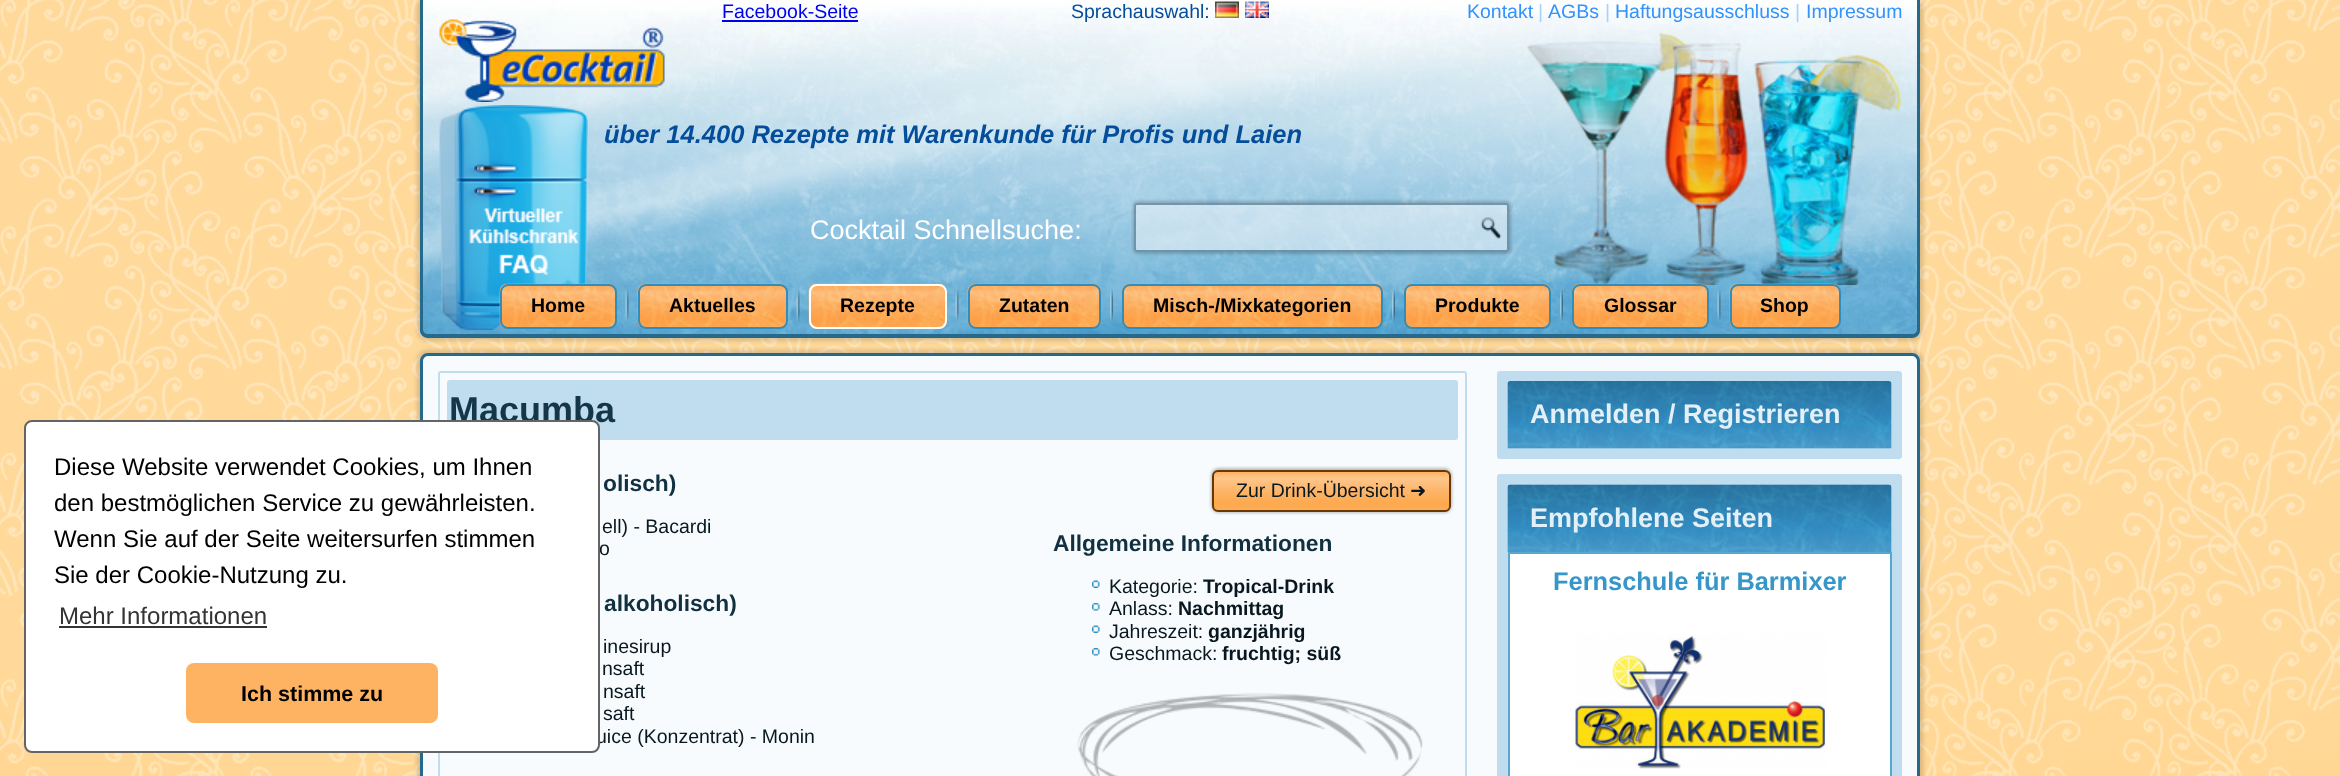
async function draw(canvas) {
	canvas.width = 2340;
	canvas.height = 776;
	const c = canvas.getContext('2d');
	c.miterLimit = 4;
	c.fontKerning = 'normal';
	async function loadImage(src) {
		const img = new Image();
		img.src = src;
		await img.decode();
		return img;
	}
	let gradient;

	c.fillStyle = '#fff';
	c.fillRect(0, 0, 2340, 776);
	c.drawImage(await loadImage('img1.png'), 0, 0, 2340, 776);
	c.fillStyle = '#00000026';
	c.filter = 'blur(2px)';
	c.beginPath();
	c.roundRect(417, 350, 1506, 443, 11);
	c.fill();
	c.filter = 'none';
	c.fillStyle = '#f7fbfd';
	c.beginPath();
	c.roundRect(421.5, 354.5, 1497, 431, 6.5);
	c.fill();
	c.strokeStyle = '#25698d';
	c.lineWidth = 3;
	c.stroke();
	c.beginPath();
	c.roundRect(439, 372, 1027, 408, 2);
	c.strokeStyle = '#bfddee';
	c.lineWidth = 2;
	c.stroke();
	c.fillStyle = '#bfddee';
	c.beginPath();
	c.roundRect(447, 380, 1011, 60, 3);
	c.fill();
	c.font = 'bold 36px Liberation Sans';
	c.fillStyle = '#133649';
	c.fillText('Macumba', 449, 422);
	c.font = '19.5px Liberation Sans';
	c.fillStyle = '#091820';
	c.fillText('o', 599, 555);
	c.fillText('uice (Konzentrat) - Monin', 596, 743);
	c.fillStyle = '#fff';
	c.beginPath();
	c.roundRect(25, 421, 574, 331, 7);
	c.fill();
	c.strokeStyle = '#646464';
	c.stroke();
	c.font = '24px Liberation Sans';
	c.fillStyle = '#000';
	for (const [text, x, y] of [
		['Diese Website verwendet Cookies, um Ihnen', 54, 475],
		['den bestmöglichen Service zu gewährleisten.', 54, 511],
		['Wenn Sie auf der Seite weitersurfen stimmen', 54, 547],
		['Sie der Cookie-Nutzung zu.', 54, 583],
	]) {
		c.fillText(text, x, y);
	}
	c.fillStyle = '#333';
	c.fillText('Mehr Informationen', 59, 624);
	c.fillRect(59, 626, 208, 2);
	c.fillStyle = '#fdb362';
	c.beginPath();
	c.roundRect(186, 663, 252, 60, 8);
	c.fill();
	c.font = 'bold 21.5px Liberation Sans';
	c.fillStyle = '#000';
	c.fillText('Ich stimme zu', 241, 701);
	c.fillStyle = '#00000026';
	c.filter = 'blur(2px)';
	c.beginPath();
	c.roundRect(417, -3, 1506, 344, 11);
	c.fill();
	c.filter = 'none';
	c.drawImage(await loadImage('img2.png'), 420, 0, 1500, 338);
	c.fillStyle = '#25698d';
	c.beginPath();
	c.moveTo(420, 0);
	c.lineTo(1920, 0);
	c.lineTo(1920, 330);
	c.bezierCurveTo(1920, 334, 1917, 338, 1912, 338);
	c.lineTo(428, 338);
	c.bezierCurveTo(423, 338, 420, 334, 420, 330);
	c.closePath();
	c.moveTo(423, 0);
	c.lineTo(1917, 0);
	c.lineTo(1917, 330);
	c.bezierCurveTo(1917, 332, 1915, 334, 1912, 334);
	c.lineTo(428, 334);
	c.bezierCurveTo(425, 334, 423, 332, 423, 330);
	c.closePath();
	c.fill('evenodd');
	c.drawImage(await loadImage('img3.png'), 439, 105, 149, 225);
	c.font = '19.5px Liberation Sans';
	c.fillStyle = '#00e';
	c.fillText('Facebook-Seite', 722, 18);
	c.fillRect(722, 20, 136, 2);
	c.fillStyle = '#034d9b';
	c.fillText('Sprachauswahl:', 1071, 18);
	c.drawImage(await loadImage('img4.png'), 1215, 1, 24, 17);
	c.drawImage(await loadImage('img5.png'), 1245, 1, 24, 17);
	c.fillStyle = '#3392fb';
	c.fillText('Kontakt', 1467, 18);
	c.fillStyle = '#aad1fd';
	c.fillText('|', 1538, 18);
	c.fillStyle = '#3392fb';
	c.fillText('AGBs', 1548, 18);
	c.fillStyle = '#aad1fd';
	c.fillText('|', 1605, 18);
	c.fillStyle = '#3392fb';
	c.fillText('Haftungsausschluss', 1615, 18);
	c.fillStyle = '#aad1fd';
	c.fillText('|', 1795, 18);
	c.fillStyle = '#3392fb';
	c.fillText('Impressum', 1806, 18);
	c.font = '27px Liberation Sans';
	c.fillStyle = '#fff';
	c.fillText('Cocktail Schnellsuche:', 810, 239);
	c.font = 'italic bold 25.5px Liberation Sans';
	c.fillStyle = '#034d9b';
	c.fillText('über 14.400 Rezepte mit Warenkunde für Profis und Laien', 604, 143);
	c.save();
	c.beginPath();
	c.moveTo(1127, 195);
	c.lineTo(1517, 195);
	c.lineTo(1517, 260);
	c.lineTo(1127, 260);
	c.closePath();
	c.moveTo(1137, 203);
	c.lineTo(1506, 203);
	c.bezierCurveTo(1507.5, 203, 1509, 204.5, 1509, 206);
	c.lineTo(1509, 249);
	c.bezierCurveTo(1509, 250.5, 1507.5, 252, 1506, 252);
	c.lineTo(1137, 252);
	c.bezierCurveTo(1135.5, 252, 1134, 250.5, 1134, 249);
	c.lineTo(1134, 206);
	c.bezierCurveTo(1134, 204.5, 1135.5, 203, 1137, 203);
	c.closePath();
	c.clip('evenodd');
	c.fillStyle = '#00000033';
	c.filter = 'blur(1.5px)';
	c.beginPath();
	c.roundRect(1133, 201, 378, 53, 5);
	c.fill();
	c.filter = 'none';
	c.restore();
	c.fillStyle = '#f9fafb80';
	c.beginPath();
	c.roundRect(1134, 203, 375, 49, 3);
	c.fill();
	c.beginPath();
	c.roundRect(1135, 204, 373, 47, 2);
	c.strokeStyle = '#1a486180';
	c.stroke();
	c.drawImage(await loadImage('img6.png'), 1480, 217, 22, 22);
	c.drawImage(await loadImage('img7.png'), 499, 283, 118, 46);
	c.beginPath();
	c.roundRect(501, 285, 115, 43, 7);
	c.strokeStyle = '#328dbd';
	c.stroke();
	c.font = 'bold 19.5px Liberation Sans';
	c.fillStyle = '#000';
	c.fillText('Home', 531, 312);
	c.drawImage(await loadImage('img8.png'), 625, 289, 4, 32);
	c.drawImage(await loadImage('img9.png'), 637, 283, 151, 46);
	c.beginPath();
	c.roundRect(639, 285, 148, 43, 7);
	c.stroke();
	c.fillText('Aktuelles', 669, 312);
	c.drawImage(await loadImage('img10.png'), 796, 289, 4, 32);
	c.drawImage(await loadImage('img11.png'), 808, 283, 139, 46);
	c.beginPath();
	c.roundRect(810, 285, 136, 43, 7);
	c.strokeStyle = '#fff';
	c.stroke();
	c.fillText('Rezepte', 840, 312);
	c.drawImage(await loadImage('img12.png'), 955, 289, 4, 32);
	c.drawImage(await loadImage('img13.png'), 967, 283, 134, 46);
	c.beginPath();
	c.roundRect(969, 285, 131, 43, 7);
	c.strokeStyle = '#328dbd';
	c.stroke();
	c.fillText('Zutaten', 999, 312);
	c.drawImage(await loadImage('img14.png'), 1110, 289, 3, 32);
	c.drawImage(await loadImage('img15.png'), 1122, 283, 261, 46);
	c.beginPath();
	c.roundRect(1123, 285, 259, 43, 7);
	c.stroke();
	c.fillText('Misch-/Mixkategorien', 1153, 312);
	c.drawImage(await loadImage('img16.png'), 1392, 289, 3, 32);
	c.drawImage(await loadImage('img17.png'), 1404, 283, 147, 46);
	c.beginPath();
	c.roundRect(1405, 285, 145, 43, 7);
	c.stroke();
	c.fillText('Produkte', 1435, 312);
	c.drawImage(await loadImage('img18.png'), 1560, 289, 3, 32);
	c.drawImage(await loadImage('img19.png'), 1572, 283, 137, 46);
	c.beginPath();
	c.roundRect(1573, 285, 135, 43, 7);
	c.stroke();
	c.fillText('Glossar', 1604, 312);
	c.drawImage(await loadImage('img20.png'), 1717, 289, 4, 32);
	c.drawImage(await loadImage('img21.png'), 1729, 283, 112, 46);
	c.beginPath();
	c.roundRect(1731, 285, 109, 43, 7);
	c.stroke();
	c.fillText('Shop', 1760, 312);
	c.font = 'bold 22.75px Liberation Sans';
	c.fillStyle = '#113040';
	c.fillText('olisch)', 603, 491);
	c.fillStyle = '#00000040';
	c.filter = 'blur(1.5px)';
	c.beginPath();
	c.roundRect(1211, 468, 241, 45, 8);
	c.fill();
	c.filter = 'none';
	gradient = c.createLinearGradient(1331, 470, 1331, 512);
	gradient.addColorStop(0, '#fdab53');
	gradient.addColorStop(0.2, '#fec68b');
	gradient.addColorStop(0.5, '#fdb568');
	gradient.addColorStop(0.8, '#fda94e');
	gradient.addColorStop(1, '#fdb05d');
	c.fillStyle = gradient;
	c.beginPath();
	c.roundRect(1213, 471, 237, 40, 5);
	c.fill();
	c.strokeStyle = '#6a3701';
	c.stroke();
	c.font = '19.5px Liberation Sans';
	c.fillStyle = '#091820';
	c.fillText('Zur Drink-Übersicht', 1236, 497);
	c.font = '19.5px DejaVu Sans';
	c.fillText('➜', 1410, 497);
	c.font = 'bold 22.75px Liberation Sans';
	c.fillStyle = '#113040';
	c.fillText('Allgemeine Informationen', 1053, 551);
	c.drawImage(await loadImage('img22.png'), 1092, 580, 8, 8);
	c.font = '19.5px Liberation Sans';
	c.fillStyle = '#091820';
	c.fillText('Kategorie:', 1109, 593);
	c.font = 'bold 19.5px Liberation Sans';
	c.fillText('Tropical-Drink', 1203, 593);
	c.drawImage(await loadImage('img23.png'), 1092, 603, 8, 8);
	c.font = '19.5px Liberation Sans';
	c.fillText('Anlass:', 1109, 615);
	c.font = 'bold 19.5px Liberation Sans';
	c.fillText('Nachmittag', 1178, 615);
	c.drawImage(await loadImage('img22.png'), 1092, 625, 8, 8);
	c.font = '19.5px Liberation Sans';
	c.fillText('Jahreszeit:', 1109, 638);
	c.save();
	c.beginPath();
	c.rect(1092, 620, 366, 22);
	c.clip();
	c.font = 'bold 19.5px Liberation Sans';
	c.fillText('ganzjährig', 1208, 638);
	c.restore();
	c.drawImage(await loadImage('img23.png'), 1092, 648, 8, 8);
	c.fillText('Geschmack:', 1109, 660);
	c.font = 'bold 19.5px Liberation Sans';
	c.fillText('fruchtig; süß', 1222, 660);
	c.font = '19.5px Liberation Sans';
	c.fillText('ell) - Bacardi', 602, 533);
	c.font = 'bold 22.75px Liberation Sans';
	c.fillStyle = '#113040';
	c.fillText('alkoholisch)', 604, 611);
	c.font = '19.5px Liberation Sans';
	c.fillStyle = '#091820';
	for (const [text, x, y] of [
		['inesirup', 603, 653],
		['nsaft', 602, 675],
		['nsaft', 603, 698],
		['saft', 603, 720],
	]) {
		c.fillText(text, x, y);
	}
	c.drawImage(await loadImage('img24.png'), 1077, 693, 346, 83);
	c.fillStyle = '#bfddee';
	c.beginPath();
	c.roundRect(1497, 371, 405, 88, 3);
	c.fill();
	c.drawImage(await loadImage('img25.png'), 1507, 381, 385, 68);
	c.font = 'bold 27px Liberation Sans';
	c.fillStyle = '#e3f0f8';
	c.fillText('Anmelden / Registrieren', 1530, 423);
	c.fillStyle = '#bfddee';
	c.beginPath();
	c.roundRect(1497, 474, 405, 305, 3);
	c.fill();
	c.drawImage(await loadImage('img26.png'), 1507, 484, 385, 68);
	c.fillStyle = '#e3f0f8';
	c.fillText('Empfohlene Seiten', 1530, 527);
	c.fillStyle = '#fff';
	c.beginPath();
	c.rect(1509, 553, 382, 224);
	c.fill();
	c.strokeStyle = '#56a7d2';
	c.stroke();
	c.font = 'bold 25.4px Liberation Sans';
	c.fillStyle = '#3696c9';
	c.fillText('Fernschule für Barmixer', 1553, 590);
	c.drawImage(await loadImage('img27.png'), 1575, 634, 252, 135);
}

draw(document.querySelector('canvas'));
